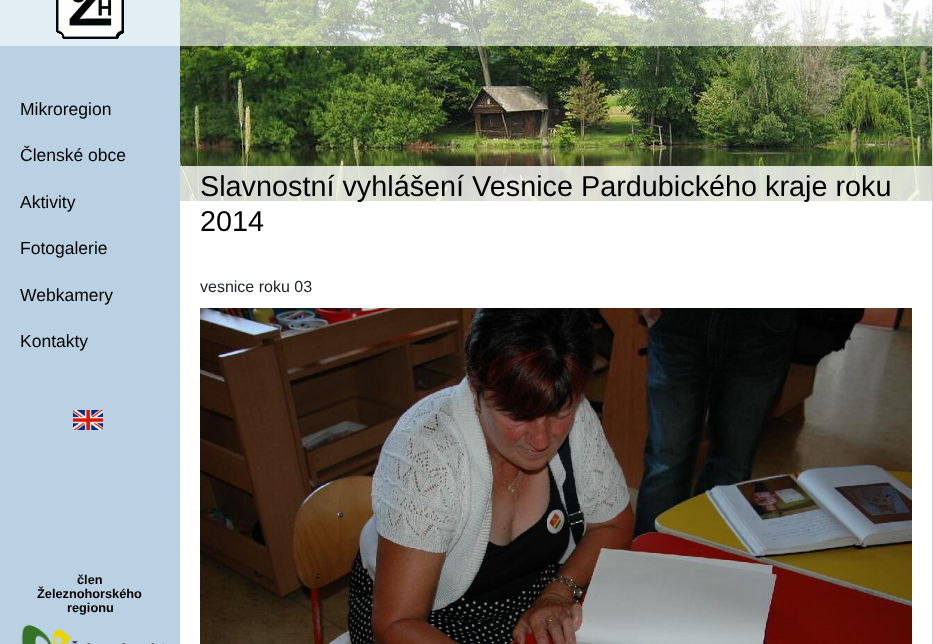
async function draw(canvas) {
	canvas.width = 933;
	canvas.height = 644;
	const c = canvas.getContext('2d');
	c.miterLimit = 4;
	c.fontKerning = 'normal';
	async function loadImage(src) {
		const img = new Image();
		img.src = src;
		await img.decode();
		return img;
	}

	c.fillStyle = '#fff';
	c.fillRect(0, 0, 933, 644);
	for (const [x, y, w, h, color] of [
		[0, 46, 180, 598, '#bad1e3'],
		[932, 0, 1, 644, '#ccc'],
		[0, 0, 180, 46, '#e3edf4'],
	]) {
		c.fillStyle = color;
		c.fillRect(x, y, w, h);
	}
	c.drawImage(await loadImage('img1.png'), 56, 0, 68, 39);
	c.font = '17.5px Liberation Sans';
	c.fillStyle = '#000';
	for (const [text, x, y] of [
		['Mikroregion', 20, 115],
		['Členské obce', 20, 161],
		['Aktivity', 20, 208],
		['Fotogalerie', 20, 254],
		['Webkamery', 20, 301],
		['Kontakty', 20, 347],
	]) {
		c.fillText(text, x, y);
	}
	c.drawImage(await loadImage('img2.png'), 73, 410, 30, 20);
	c.font = 'bold 12.75px Liberation Sans';
	for (const [text, x, y] of [
		['člen', 77, 584],
		['Železnohorského', 37, 598],
		['regionu', 67, 612],
	]) {
		c.fillText(text, x, y);
	}
	c.drawImage(await loadImage('img3.png'), 21, 625, 144, 19);
	c.drawImage(await loadImage('img4.png'), 180, 0, 752, 201);
	c.fillStyle = '#ffffff99';
	c.fillRect(180, 0, 752, 46);
	c.fillStyle = '#ffffffcc';
	c.fillRect(180, 166, 752, 35);
	c.font = '28.8px Liberation Sans';
	c.fillStyle = '#000';
	c.fillText('Slavnostní vyhlášení Vesnice Pardubického kraje roku', 200, 196);
	c.fillText('2014', 200, 231);
	c.font = '16px Liberation Sans';
	c.fillStyle = '#212529';
	c.fillText('vesnice roku 03', 200, 292);
	c.drawImage(await loadImage('img5.png'), 200, 308, 712, 336);
}

draw(document.querySelector('canvas'));
